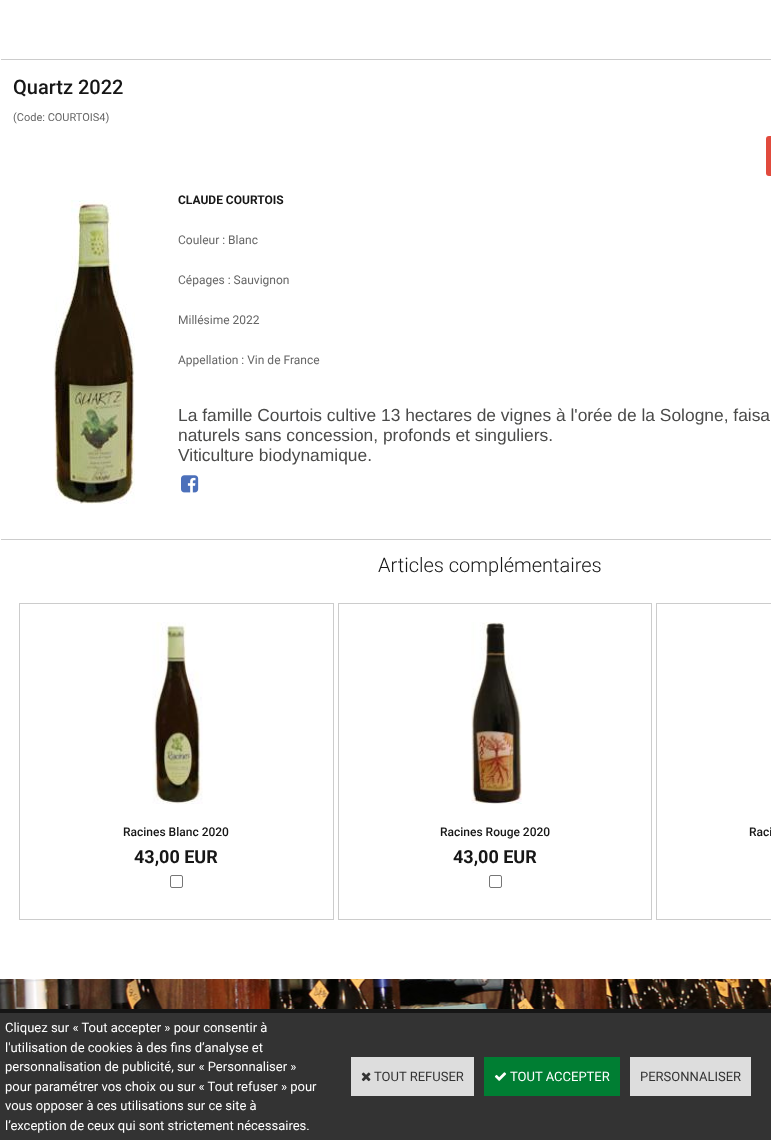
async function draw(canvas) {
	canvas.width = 771;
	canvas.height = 1140;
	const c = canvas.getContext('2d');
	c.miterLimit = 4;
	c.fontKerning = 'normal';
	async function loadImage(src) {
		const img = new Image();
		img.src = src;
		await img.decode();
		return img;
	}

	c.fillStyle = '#fff';
	c.fillRect(0, 0, 771, 1140);
	c.drawImage(await loadImage('img1.png'), 0, 979, 771, 30);
	c.fillStyle = '#ccc';
	c.fillRect(1, 59, 770, 1);
	c.font = '500 20px Roboto';
	c.fillStyle = '#161616';
	c.fillText('Quartz 2022', 13, 94);
	c.font = '11px Roboto';
	c.fillStyle = '#666';
	c.fillText('(Code: COURTOIS4)', 13, 121);
	c.fillStyle = '#e14a3d';
	c.beginPath();
	c.roundRect(766, 136, 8, 40, 3);
	c.fill();
	c.drawImage(await loadImage('img2.png'), 53, 200, 82, 304);
	c.font = 'bold 12px Roboto';
	c.fillStyle = '#161616';
	c.fillText('CLAUDE COURTOIS', 178, 204);
	c.font = '12px Roboto';
	c.fillStyle = '#666';
	for (const [text, x, y] of [
		['Couleur : Blanc', 178, 244],
		['Cépages : Sauvignon', 178, 284],
		['Millésime 2022', 178, 324],
		['Appellation : Vin de France', 178, 364],
	]) {
		c.fillText(text, x, y);
	}
	c.font = '17.4px Liberation Sans';
	c.fillStyle = '#4a4a49';
	for (const [text, x, y] of [
		['La famille Courtois cultive 13 hectares de vignes à l\'orée de la Sologne, faisa', 178, 421],
		['naturels sans concession, profonds et singuliers.', 178, 441],
		['Viticulture biodynamique.', 178, 461],
	]) {
		c.fillText(text, x, y);
	}
	c.drawImage(await loadImage('img3.png'), 181, 475, 18, 18);
	c.fillStyle = '#ccc';
	c.fillRect(1, 539, 770, 1);
	c.font = '300 20px Roboto';
	c.fillStyle = '#161616';
	c.fillText('Articles complémentaires', 378, 572);
	c.strokeStyle = '#ccc';
	c.strokeRect(19.5, 603.5, 314, 316);
	c.drawImage(await loadImage('img4.png'), 152, 622, 51, 182);
	c.font = '500 12px Roboto';
	c.fillText('Racines Blanc 2020', 123, 836);
	c.font = 'bold 18px Roboto';
	c.fillText('43,00 EUR', 134, 863);
	c.beginPath();
	c.roundRect(170.5, 875.5, 12, 12, 1.5);
	c.strokeStyle = '#767676';
	c.stroke();
	c.strokeStyle = '#ccc';
	c.strokeRect(338.5, 603.5, 313, 316);
	c.drawImage(await loadImage('img5.png'), 471, 622, 51, 182);
	c.font = '500 12px Roboto';
	c.fillText('Racines Rouge 2020', 440, 836);
	c.font = 'bold 18px Roboto';
	c.fillText('43,00 EUR', 453, 863);
	c.beginPath();
	c.roundRect(489.5, 875.5, 12, 12, 1.5);
	c.strokeStyle = '#767676';
	c.stroke();
	c.strokeStyle = '#ccc';
	c.strokeRect(656.5, 603.5, 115, 316);
	c.font = '500 12px Roboto';
	c.fillText('Raci', 749, 836);
	c.fillRect(0, 1009, 771, 4);
	c.fillStyle = '#333';
	c.fillRect(0, 1013, 771, 127);
	c.font = '13px Roboto';
	c.fillStyle = '#fff';
	for (const [text, x, y] of [
		['Cliquez sur « Tout accepter » pour consentir à', 5, 1032],
		['l\'utilisation de cookies à des fins d’analyse et', 5, 1052],
		['personnalisation de publicité, sur « Personnaliser »', 5, 1071],
		['pour paramétrer vos choix ou sur « Tout refuser » pour', 5, 1091],
		['vous opposer à ces utilisations sur ce site à', 5, 1110],
		['l’exception de ceux qui sont strictement nécessaires.', 5, 1130],
	]) {
		c.fillText(text, x, y);
	}
	c.fillStyle = '#ddd';
	c.fillRect(351, 1057, 123, 39);
	c.drawImage(await loadImage('img6.png'), 361, 1072, 10, 10);
	c.fillStyle = '#333';
	c.fillText('TOUT REFUSER', 374, 1081);
	c.fillStyle = '#007e33';
	c.fillRect(484, 1057, 136, 39);
	c.drawImage(await loadImage('img7.png'), 494, 1072, 13, 9);
	c.fillStyle = '#fff';
	c.fillText('TOUT ACCEPTER', 510, 1081);
	c.fillStyle = '#ddd';
	c.fillRect(630, 1057, 121, 39);
	c.fillStyle = '#333';
	c.fillText('PERSONNALISER', 640, 1081);
}

draw(document.querySelector('canvas'));
